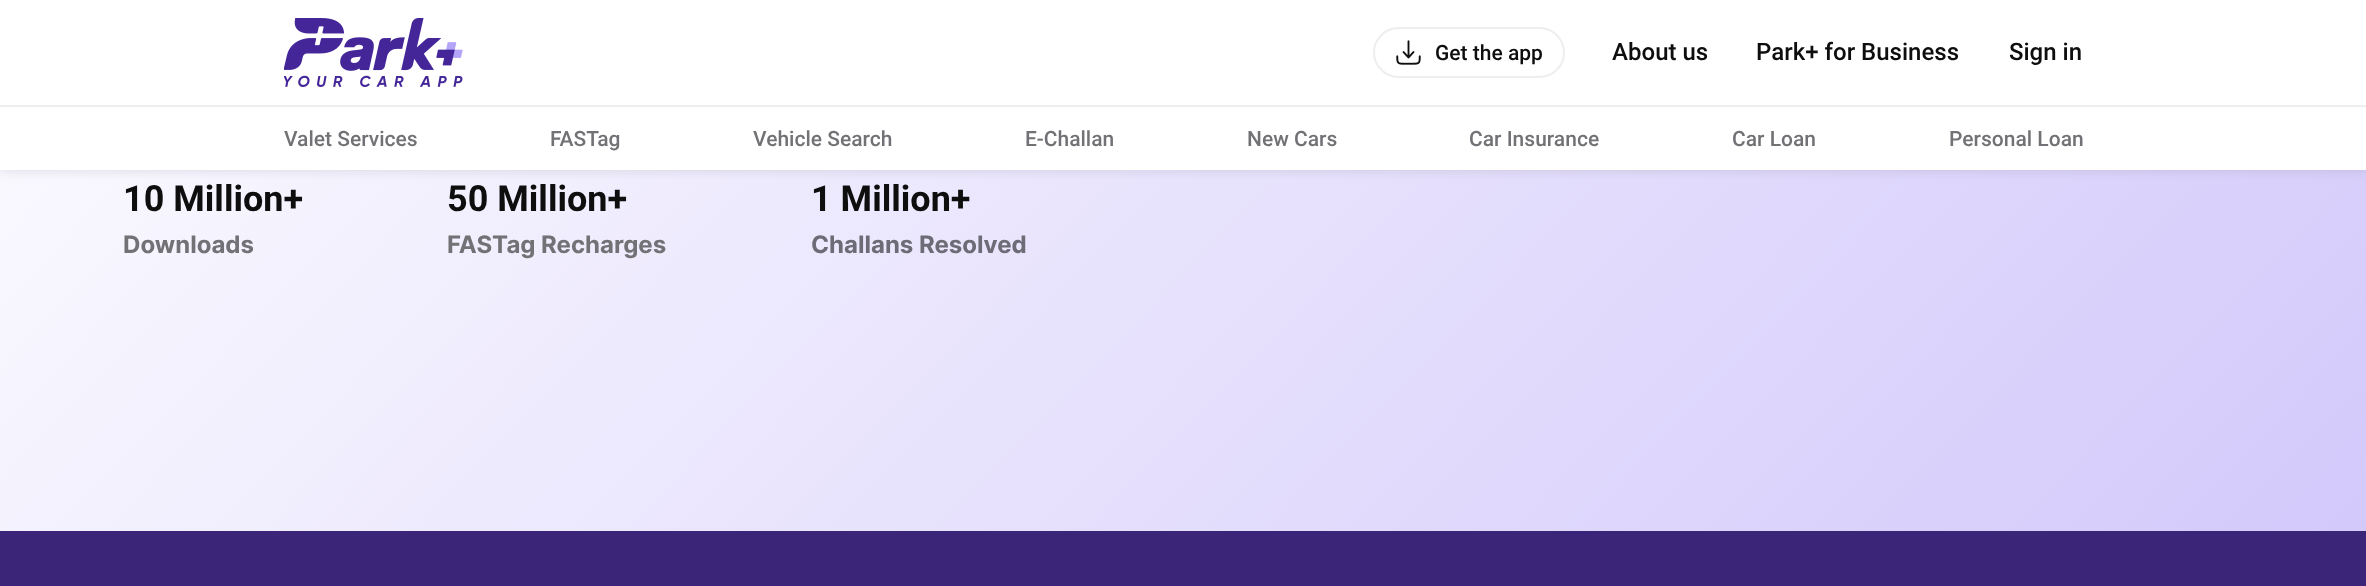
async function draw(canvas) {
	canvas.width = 2366;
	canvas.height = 586;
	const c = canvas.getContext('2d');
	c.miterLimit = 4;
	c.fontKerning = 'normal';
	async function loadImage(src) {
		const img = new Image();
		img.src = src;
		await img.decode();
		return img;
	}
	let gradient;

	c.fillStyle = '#3a2578';
	c.fillRect(0, 0, 2366, 586);
	gradient = c.createLinearGradient(376, -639, 1991, 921);
	gradient.addColorStop(0, '#fff');
	gradient.addColorStop(1, '#d3c9fb');
	c.fillStyle = gradient;
	c.fillRect(0, 170, 2366, 361);
	c.fillStyle = '#63636333';
	c.filter = 'blur(6px)';
	c.beginPath();
	c.rect(0, 0, 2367, 170);
	c.fill();
	c.filter = 'none';
	c.fillStyle = '#fff';
	c.fillRect(0, 0, 2366, 170);
	c.fillStyle = '#eee';
	c.fillRect(0, 105, 2366, 2);
	c.drawImage(await loadImage('img1.png'), 284, 18, 179, 69);
	c.beginPath();
	c.roundRect(1374, 28, 190, 49, 24.5);
	c.strokeStyle = '#eee';
	c.lineWidth = 2;
	c.stroke();
	c.drawImage(await loadImage('img2.png'), 1396, 40, 25, 25);
	c.font = '500 21px Roboto';
	c.fillStyle = '#0e0e0e';
	c.fillText('Get the app', 1435, 60);
	c.font = '500 24px Roboto';
	for (const [text, x, y] of [
		['About us', 1612, 60],
		['Park+ for Business', 1756, 60],
		['Sign in', 2009, 60],
	]) {
		c.fillText(text, x, y);
	}
	c.font = '500 21px Roboto';
	c.fillStyle = '#727175';
	for (const [text, x, y] of [
		['Valet Services', 284, 146],
		['FASTag', 550, 146],
		['Vehicle Search', 753, 146],
		['E-Challan', 1025, 146],
		['New Cars', 1247, 146],
		['Car Insurance', 1469, 146],
		['Car Loan', 1732, 146],
		['Personal Loan', 1949, 146],
	]) {
		c.fillText(text, x, y);
	}
	c.font = 'bold 36px Roboto';
	c.fillStyle = '#0e0e0e';
	c.fillText('10 Million+', 123, 211);
	c.font = 'bold 24px Inter';
	c.fillStyle = '#727175';
	c.fillText('Downloads', 123, 253);
	c.font = 'bold 36px Roboto';
	c.fillStyle = '#0e0e0e';
	c.fillText('50 Million+', 447, 211);
	c.font = 'bold 24px Inter';
	c.fillStyle = '#727175';
	c.fillText('FASTag Recharges', 447, 253);
	c.font = 'bold 36px Roboto';
	c.fillStyle = '#0e0e0e';
	c.fillText('1 Million+', 811, 211);
	c.font = 'bold 24px Inter';
	c.fillStyle = '#6d6b75';
	c.fillText('Challans Resolved', 811, 253);
}

draw(document.querySelector('canvas'));
